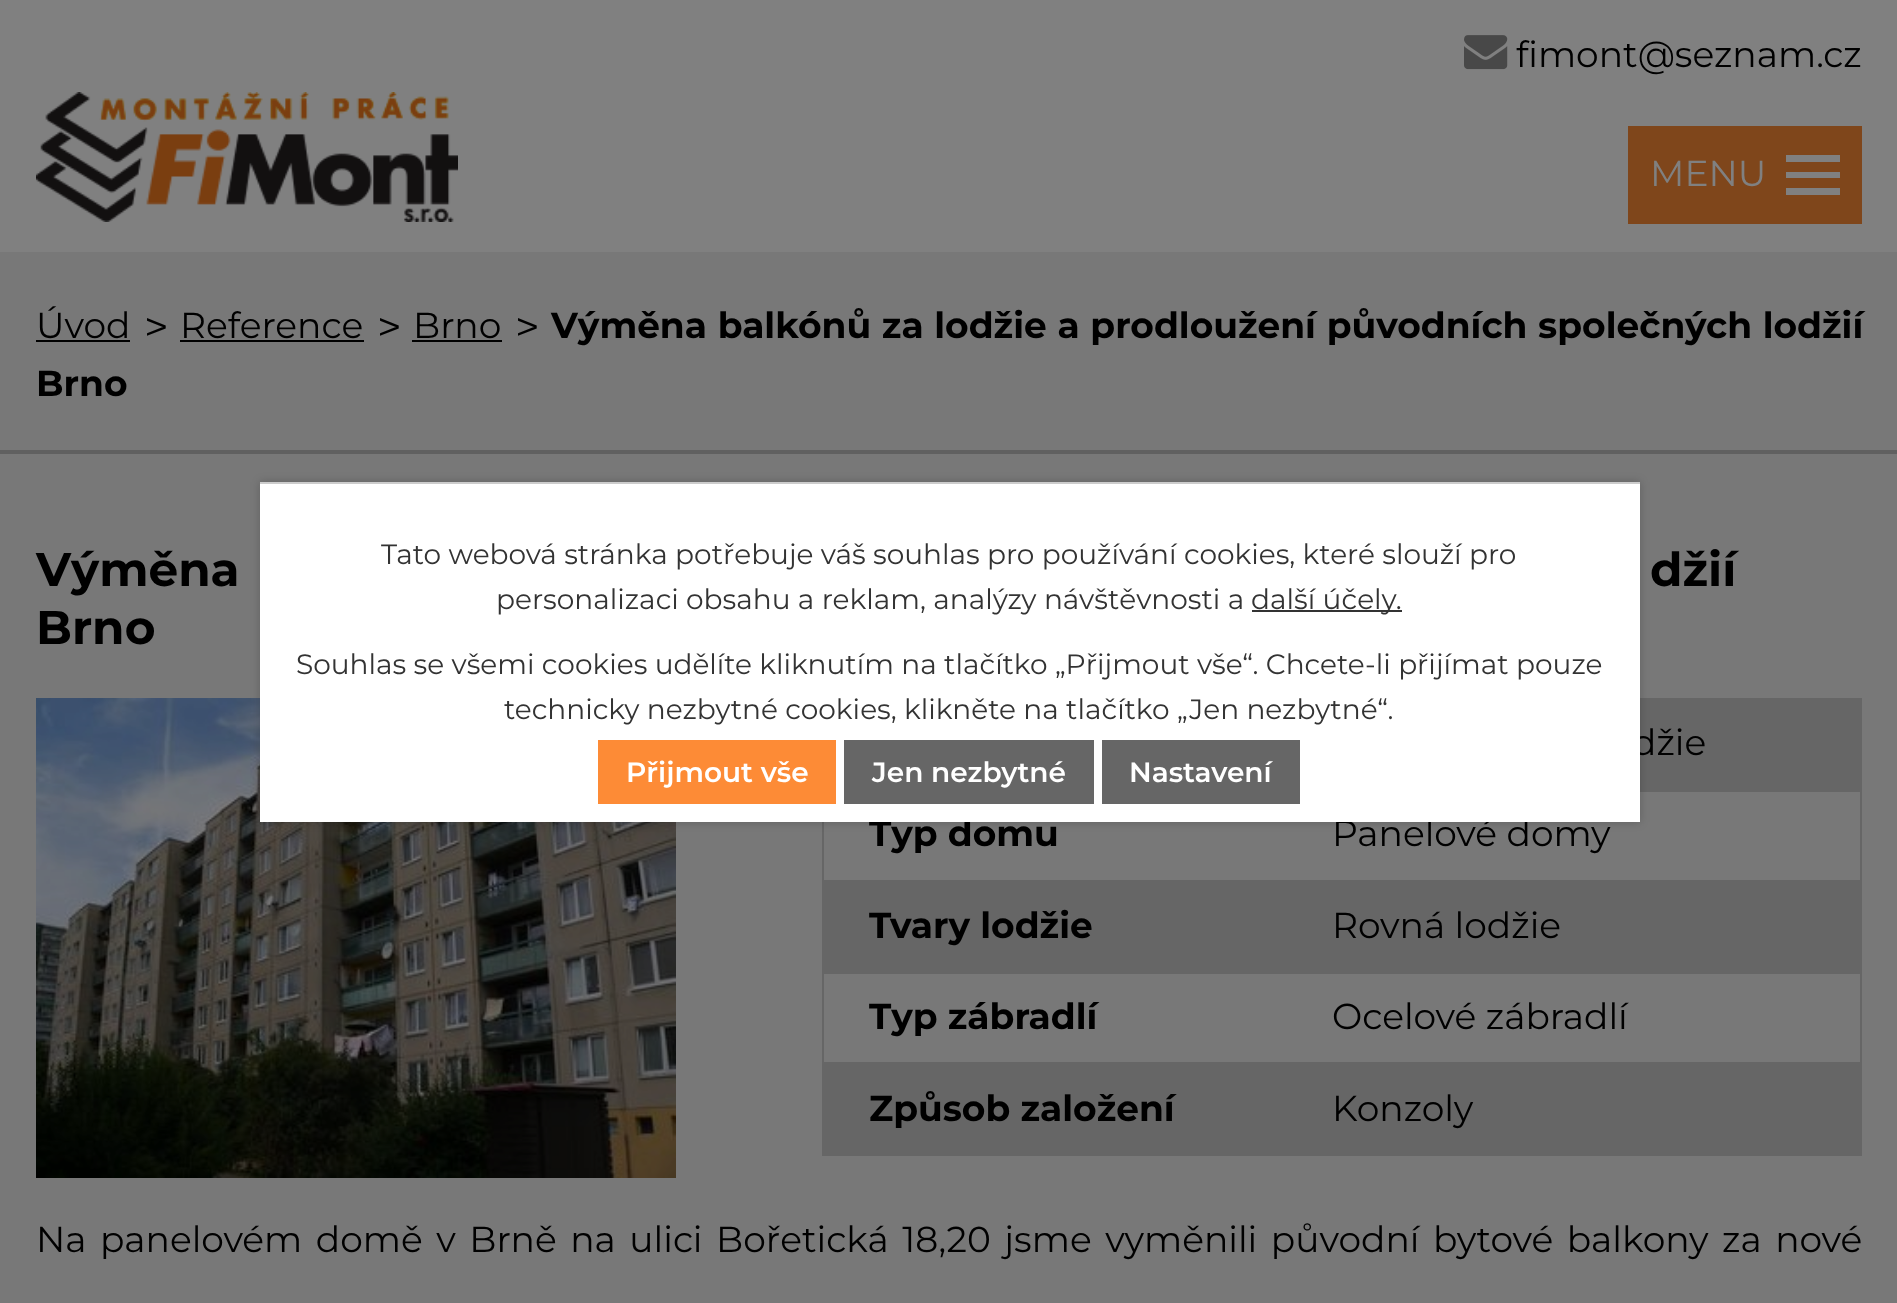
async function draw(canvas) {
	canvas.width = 1897;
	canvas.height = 1303;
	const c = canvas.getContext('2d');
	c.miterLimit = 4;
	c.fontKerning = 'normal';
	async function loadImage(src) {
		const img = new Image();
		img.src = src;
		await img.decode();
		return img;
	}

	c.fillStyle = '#808080';
	c.fillRect(0, 0, 1897, 1303);
	c.drawImage(await loadImage('img1.png'), 1464, 35, 44, 35);
	c.font = '36px Montserrat';
	c.fillStyle = '#000';
	c.fillText('fimont@seznam.cz', 1516, 67);
	c.drawImage(await loadImage('img2.png'), 36, 92, 422, 130);
	c.fillStyle = '#7f461b';
	c.fillRect(1628, 126, 234, 98);
	c.fillStyle = '#808080';
	c.fillText('MENU', 1650, 186);
	c.beginPath();
	c.moveTo(1786, 195);
	c.lineTo(1786, 188);
	c.lineTo(1840, 188);
	c.lineTo(1840, 195);
	c.closePath();
	c.moveTo(1786, 155);
	c.lineTo(1840, 155);
	c.lineTo(1840, 162);
	c.lineTo(1786, 162);
	c.closePath();
	c.moveTo(1786, 178);
	c.lineTo(1786, 172);
	c.lineTo(1840, 172);
	c.lineTo(1840, 178);
	c.closePath();
	c.fill();
	c.fillStyle = '#787878';
	c.fillRect(0, 252, 1897, 1051);
	c.fillStyle = '#606060';
	c.fillRect(0, 450, 1897, 4);
	c.fillStyle = '#000';
	c.fillText('Úvod', 36, 338);
	c.fillRect(36, 340, 94, 2);
	c.font = '43px Montserrat';
	c.fillText('>', 144, 342);
	c.font = '36px Montserrat';
	c.fillText('Reference', 180, 338);
	c.fillRect(180, 340, 184, 2);
	c.font = '43px Montserrat';
	c.fillText('>', 377, 342);
	c.font = '36px Montserrat';
	c.fillText('Brno', 413, 338);
	c.fillRect(412, 340, 90, 2);
	c.font = '43px Montserrat';
	c.fillText('>', 515, 342);
	c.wordSpacing = '0.5px';
	c.font = 'bold 36px Montserrat';
	c.fillText('Výměna balkónů za lodžie a prodloužení původních společných lodžií', 551, 338);
	c.wordSpacing = '0px';
	c.fillText('Brno', 36, 396);
	c.font = 'bold 47px Montserrat';
	for (const [text, x, y] of [
		['Výměna', 36, 586],
		['džií', 1650, 586],
		['Brno', 36, 644],
	]) {
		c.fillText(text, x, y);
	}
	c.drawImage(await loadImage('img3.png'), 36, 698, 640, 480);
	c.fillStyle = '#666';
	c.fillRect(1640, 698, 222, 92);
	c.font = '36px Montserrat';
	c.fillStyle = '#000';
	c.fillText('džie', 1632, 755);
	c.strokeStyle = '#666';
	c.lineWidth = 2;
	c.strokeRect(823, 791, 1038, 90);
	c.font = 'bold 36px Montserrat';
	c.fillText('Typ domu', 869, 846);
	c.font = '36px Montserrat';
	c.fillText('Panelové domy', 1332, 846);
	c.fillStyle = '#666';
	c.fillRect(822, 882, 1040, 90);
	c.font = 'bold 36px Montserrat';
	c.fillStyle = '#000';
	c.fillText('Tvary lodžie', 869, 938);
	c.font = '36px Montserrat';
	c.fillText('Rovná lodžie', 1332, 938);
	c.strokeRect(823, 973, 1038, 90);
	c.font = 'bold 36px Montserrat';
	c.fillText('Typ zábradlí', 869, 1029);
	c.font = '36px Montserrat';
	c.fillText('Ocelové zábradlí', 1332, 1029);
	c.fillStyle = '#666';
	c.fillRect(822, 1064, 1040, 92);
	c.font = 'bold 36px Montserrat';
	c.fillStyle = '#000';
	c.fillText('Způsob založení', 869, 1121);
	c.font = '36px Montserrat';
	c.fillText('Konzoly', 1332, 1121);
	c.wordSpacing = '4.1px';
	c.fillText('Na panelovém domě v Brně na ulici Bořetická 18,20 jsme vyměnili původní bytové balkony za nové', 36, 1252);
	c.fillStyle = '#00000033';
	c.filter = 'blur(5px)';
	c.beginPath();
	c.rect(260, 482, 1380, 340);
	c.fill();
	c.filter = 'none';
	c.fillStyle = '#fff';
	c.fillRect(260, 484, 1380, 338);
	c.fillStyle = '#ccc';
	c.fillRect(260, 482, 1380, 2);
	c.wordSpacing = '0px';
	c.font = '28px Montserrat';
	c.fillStyle = '#333';
	c.fillText('Tato webová stránka potřebuje váš souhlas pro používání cookies, které slouží pro', 381, 564);
	c.fillText('personalizaci obsahu a reklam, analýzy návštěvnosti a', 496, 609);
	c.fillRect(1252, 610, 150, 2);
	for (const [text, x, y] of [
		['další účely.', 1251, 609],
		['Souhlas se všemi cookies udělíte kliknutím na tlačítko „Přijmout vše“. Chcete-li přijímat pouze', 296, 674],
		['technicky nezbytné cookies, klikněte na tlačítko „Jen nezbytné“.', 504, 719],
	]) {
		c.fillText(text, x, y);
	}
	c.fillStyle = '#fd8b36';
	c.fillRect(598, 740, 238, 64);
	c.font = '600 28px Montserrat';
	c.fillStyle = '#fff';
	c.fillText('Přijmout vše', 626, 782);
	c.fillStyle = '#666';
	c.fillRect(844, 740, 250, 64);
	c.fillStyle = '#fff';
	c.fillText('Jen nezbytné', 872, 782);
	c.fillStyle = '#666';
	c.fillRect(1102, 740, 198, 64);
	c.fillStyle = '#fff';
	c.fillText('Nastavení', 1129, 782);
}

draw(document.querySelector('canvas'));
